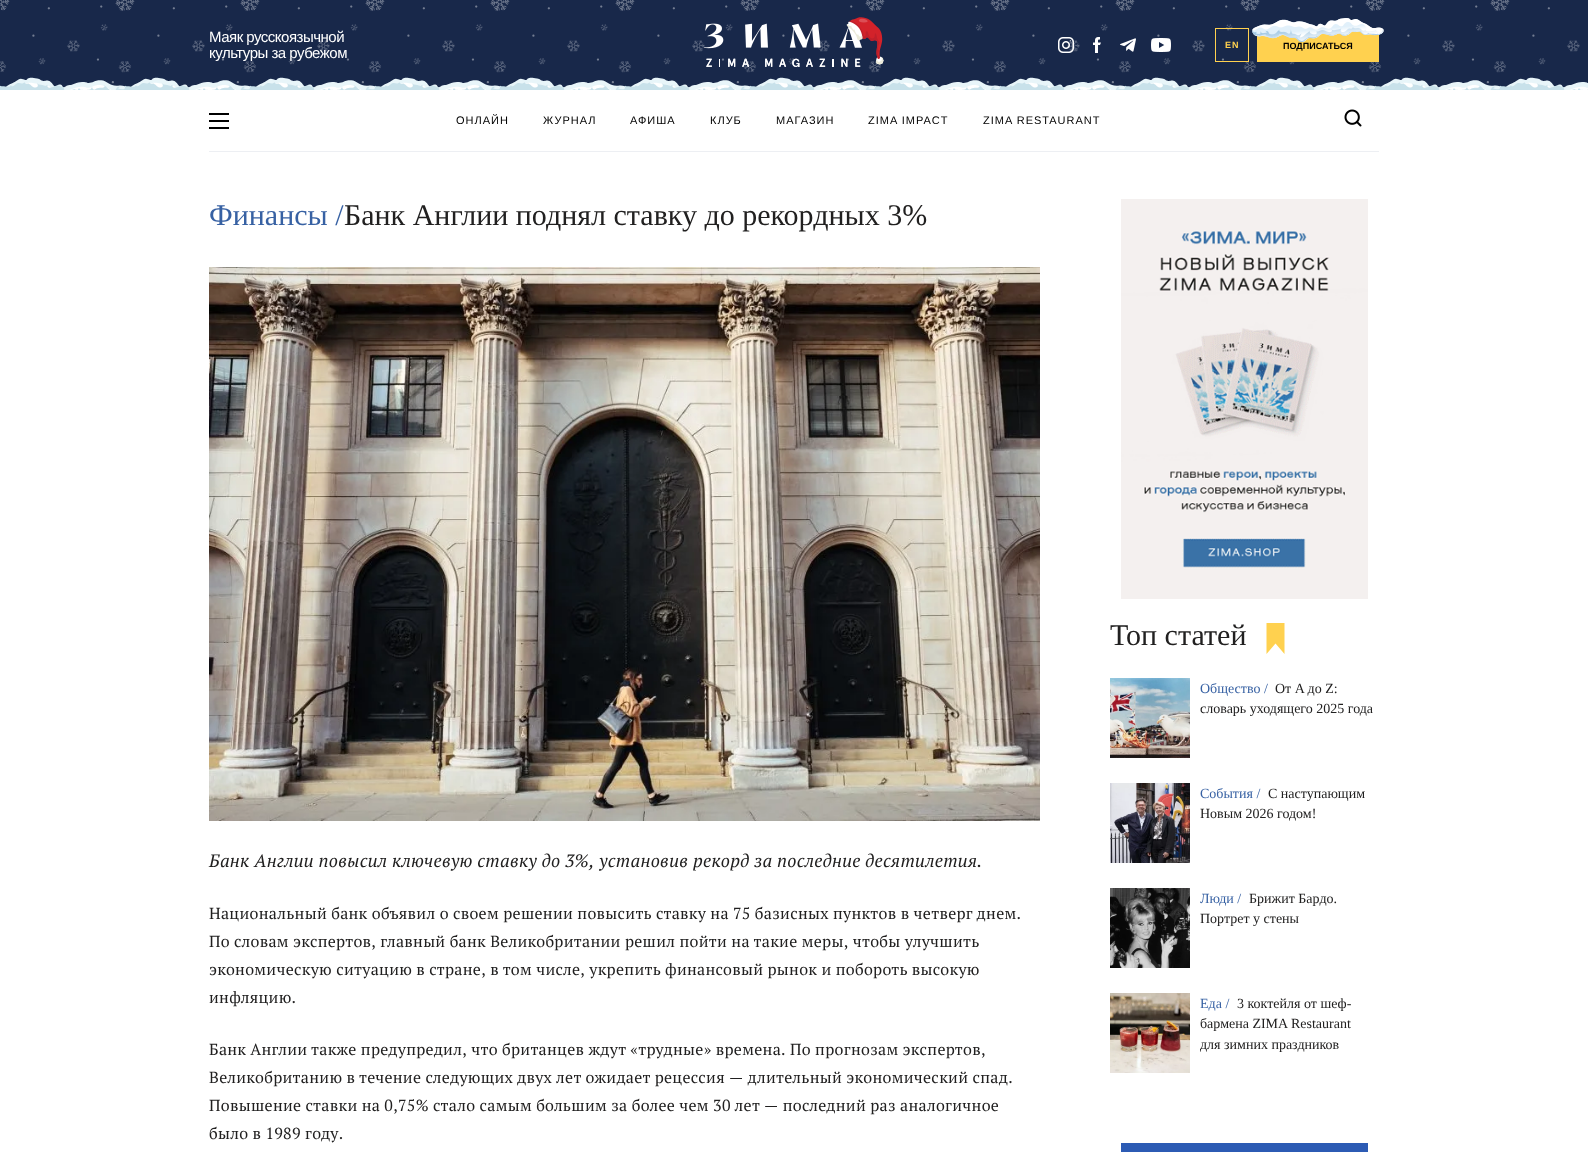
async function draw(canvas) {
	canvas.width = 1588;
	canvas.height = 1152;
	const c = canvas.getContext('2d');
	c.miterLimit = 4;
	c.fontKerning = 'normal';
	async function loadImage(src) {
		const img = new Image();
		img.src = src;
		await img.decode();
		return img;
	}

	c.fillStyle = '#fff';
	c.fillRect(0, 0, 1588, 1152);
	c.fillStyle = '#18284a';
	c.fillRect(0, 0, 1588, 88);
	c.drawImage(await loadImage('img1.png'), 0, 0, 1588, 90);
	c.letterSpacing = '-0.5px';
	c.font = '15px Liberation Sans';
	c.fillStyle = '#fff';
	c.fillText('Маяк русскоязычной', 209, 42);
	c.fillText('культуры за рубежом', 209, 58);
	c.drawImage(await loadImage('img2.png'), 704, 17, 180, 50);
	c.drawImage(await loadImage('img3.png'), 1058, 37, 16, 16);
	c.drawImage(await loadImage('img4.png'), 1093, 37, 8, 16);
	c.drawImage(await loadImage('img5.png'), 1120, 38, 16, 14);
	c.drawImage(await loadImage('img6.png'), 1151, 38, 20, 14);
	c.strokeStyle = '#ffd14f';
	c.strokeRect(1215.5, 28.5, 33, 33);
	c.letterSpacing = '1px';
	c.font = 'bold 9px Liberation Sans';
	c.fillStyle = '#ffd14f';
	c.fillText('EN', 1225, 48);
	c.fillRect(1257, 28, 122, 34);
	c.drawImage(await loadImage('img7.png'), 1252, 18, 132, 24);
	c.letterSpacing = '0px';
	c.fillStyle = '#000';
	c.fillText('ПОДПИСАТЬСЯ', 1283, 49);
	for (const [x, y, w, h, color] of [
		[209, 151, 1170, 1, '#edeff3'],
		[209, 113, 20, 2, '#000'],
		[209, 120, 20, 2, '#000'],
		[209, 127, 20, 2, '#000'],
	]) {
		c.fillStyle = color;
		c.fillRect(x, y, w, h);
	}
	c.letterSpacing = '1px';
	c.font = '11px Liberation Sans';
	for (const [text, x, y] of [
		['ОНЛАЙН', 456, 124],
		['ЖУРНАЛ', 543, 124],
		['АФИША', 630, 124],
		['КЛУБ', 710, 124],
		['МАГАЗИН', 776, 124],
		['ZIMA IMPACT', 868, 124],
		['ZIMA RESTAURANT', 983, 124],
	]) {
		c.fillText(text, x, y);
	}
	c.drawImage(await loadImage('img8.png'), 1344, 109, 18, 18);
	c.letterSpacing = '0px';
	c.font = '30px Liberation Serif';
	c.fillStyle = '#3761a3';
	c.fillText('Финансы /', 209, 225);
	c.fillStyle = '#212020';
	c.fillText('Банк Англии поднял ставку до рекордных 3%', 344, 225);
	c.drawImage(await loadImage('img9.png'), 209, 267, 831, 554);
	c.letterSpacing = '0.3px';
	c.font = 'italic 18px PT Serif';
	c.fillText('Банк Англии повысил ключевую ставку до 3%, установив рекорд за последние десятилетия.', 209, 867);
	c.font = '16px PT Serif';
	for (const [text, x, y] of [
		['Национальный банк объявил о своем решении повысить ставку на 75 базисных пунктов в четверг днем.', 209, 919],
		['По словам экспертов, главный банк Великобритании решил пойти на такие меры, чтобы улучшить', 209, 947],
		['экономическую ситуацию в стране, в том числе, укрепить финансовый рынок и побороть высокую', 209, 975],
		['инфляцию.', 209, 1003],
		['Банк Англии также предупредил, что британцев ждут «трудные» времена. По прогнозам экспертов,', 209, 1055],
		['Великобританию в течение следующих двух лет ожидает рецессия — длительный экономический спад.', 209, 1083],
		['Повышение ставки на 0,75% стало самым большим за более чем 30 лет — последний раз аналогичное', 209, 1111],
		['было в 1989 году.', 209, 1139],
	]) {
		c.fillText(text, x, y);
	}
	c.drawImage(await loadImage('img10.png'), 1121, 199, 247, 400);
	c.letterSpacing = '0px';
	c.font = '30px Liberation Serif';
	c.fillText('Топ статей', 1110, 645);
	c.fillStyle = '#ffd14f';
	c.beginPath();
	c.moveTo(1284.5, 623);
	c.lineTo(1266.5, 623);
	c.lineTo(1266.5, 654);
	c.lineTo(1275.5, 643.5);
	c.lineTo(1284.5, 654);
	c.closePath();
	c.fill();
	c.drawImage(await loadImage('img11.png'), 1110, 678, 80, 80);
	c.font = '14px Liberation Serif';
	c.fillStyle = '#3761a3';
	c.fillText('Общество /', 1200, 693);
	c.fillStyle = '#212020';
	c.fillText('От A до Z:', 1275, 693);
	c.fillText('словарь уходящего 2025 года', 1200, 713);
	c.drawImage(await loadImage('img12.png'), 1110, 783, 80, 80);
	c.fillStyle = '#3761a3';
	c.fillText('События /', 1200, 798);
	c.fillStyle = '#212020';
	c.fillText('С наступающим', 1268, 798);
	c.fillText('Новым 2026 годом!', 1200, 818);
	c.drawImage(await loadImage('img13.png'), 1110, 888, 80, 80);
	c.fillStyle = '#3761a3';
	c.fillText('Люди /', 1200, 903);
	c.fillStyle = '#212020';
	c.fillText('Брижит Бардо.', 1249, 903);
	c.fillText('Портрет у стены', 1200, 923);
	c.drawImage(await loadImage('img14.png'), 1110, 993, 80, 80);
	c.fillStyle = '#3761a3';
	c.fillText('Еда /', 1200, 1008);
	c.fillStyle = '#212020';
	for (const [text, x, y] of [
		['3 коктейля от шеф-', 1237, 1008],
		['бармена ZIMA Restaurant', 1200, 1028],
		['для зимних праздников', 1200, 1049],
	]) {
		c.fillText(text, x, y);
	}
	c.fillStyle = '#2c5bb4';
	c.fillRect(1121, 1143, 247, 9);
}

draw(document.querySelector('canvas'));
